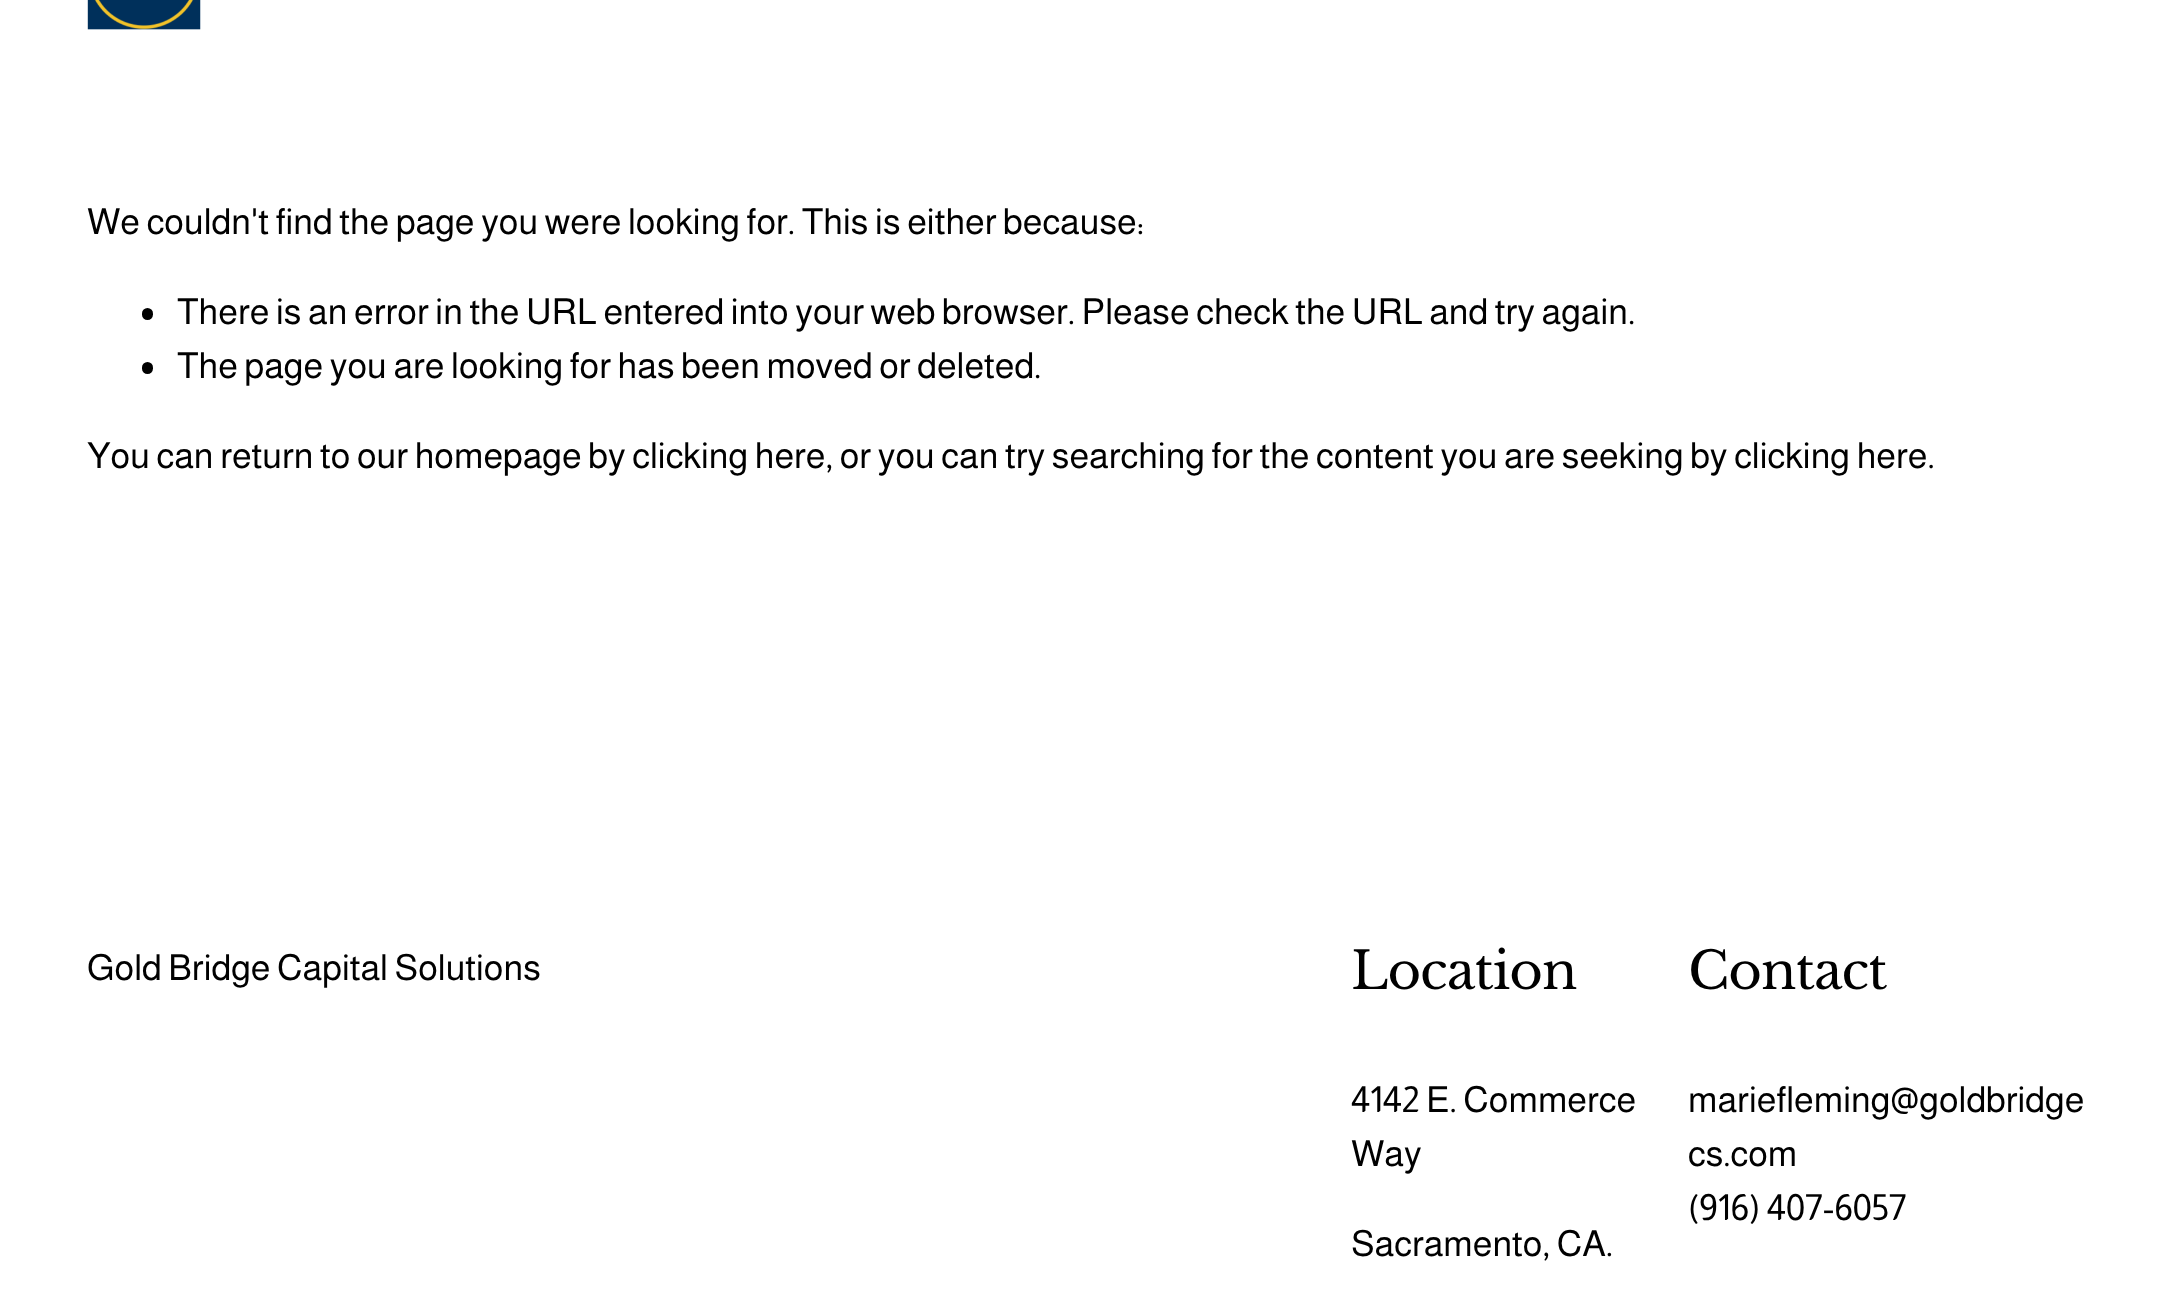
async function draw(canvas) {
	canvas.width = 2171;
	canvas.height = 1291;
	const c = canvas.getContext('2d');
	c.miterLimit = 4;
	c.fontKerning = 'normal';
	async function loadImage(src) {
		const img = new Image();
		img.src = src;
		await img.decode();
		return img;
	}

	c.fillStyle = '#fff';
	c.fillRect(0, 0, 2171, 1291);
	c.drawImage(await loadImage('img1.png'), 87, 0, 114, 30);
	c.font = '36px Almarai';
	c.fillStyle = '#000';
	c.fillText('We couldn\'t find the page you were looking for. This is either because:', 87, 234);
	c.beginPath();
	c.roundRect(142, 308, 11, 12, 5.5);
	c.fill();
	c.fillText('There is an error in the URL entered into your web browser. Please check the URL and try again.', 177, 324);
	c.beginPath();
	c.roundRect(142, 362, 11, 12, 5.5);
	c.fill();
	for (const [text, x, y] of [
		['The page you are looking for has been moved or deleted.', 177, 378],
		['You can return to our homepage by clicking here, or you can try searching for the content you are seeking by clicking here.', 87, 468],
		['Gold Bridge Capital Solutions', 87, 980],
	]) {
		c.fillText(text, x, y);
	}
	c.letterSpacing = '-1px';
	c.font = '51.5px Libre Baskerville';
	c.fillText('Location', 1351, 989);
	c.letterSpacing = '0px';
	c.font = '36px Almarai';
	for (const [text, x, y] of [
		['4142 E. Commerce', 1351, 1112],
		['Way', 1351, 1166],
		['Sacramento, CA.', 1351, 1256],
	]) {
		c.fillText(text, x, y);
	}
	c.letterSpacing = '-1px';
	c.font = '51.5px Libre Baskerville';
	c.fillText('Contact', 1688, 989);
	c.letterSpacing = '0px';
	c.font = '36px Almarai';
	for (const [text, x, y] of [
		['mariefleming@goldbridge', 1688, 1112],
		['cs.com', 1688, 1166],
		['(916) 407-6057', 1688, 1220],
	]) {
		c.fillText(text, x, y);
	}
}

draw(document.querySelector('canvas'));
